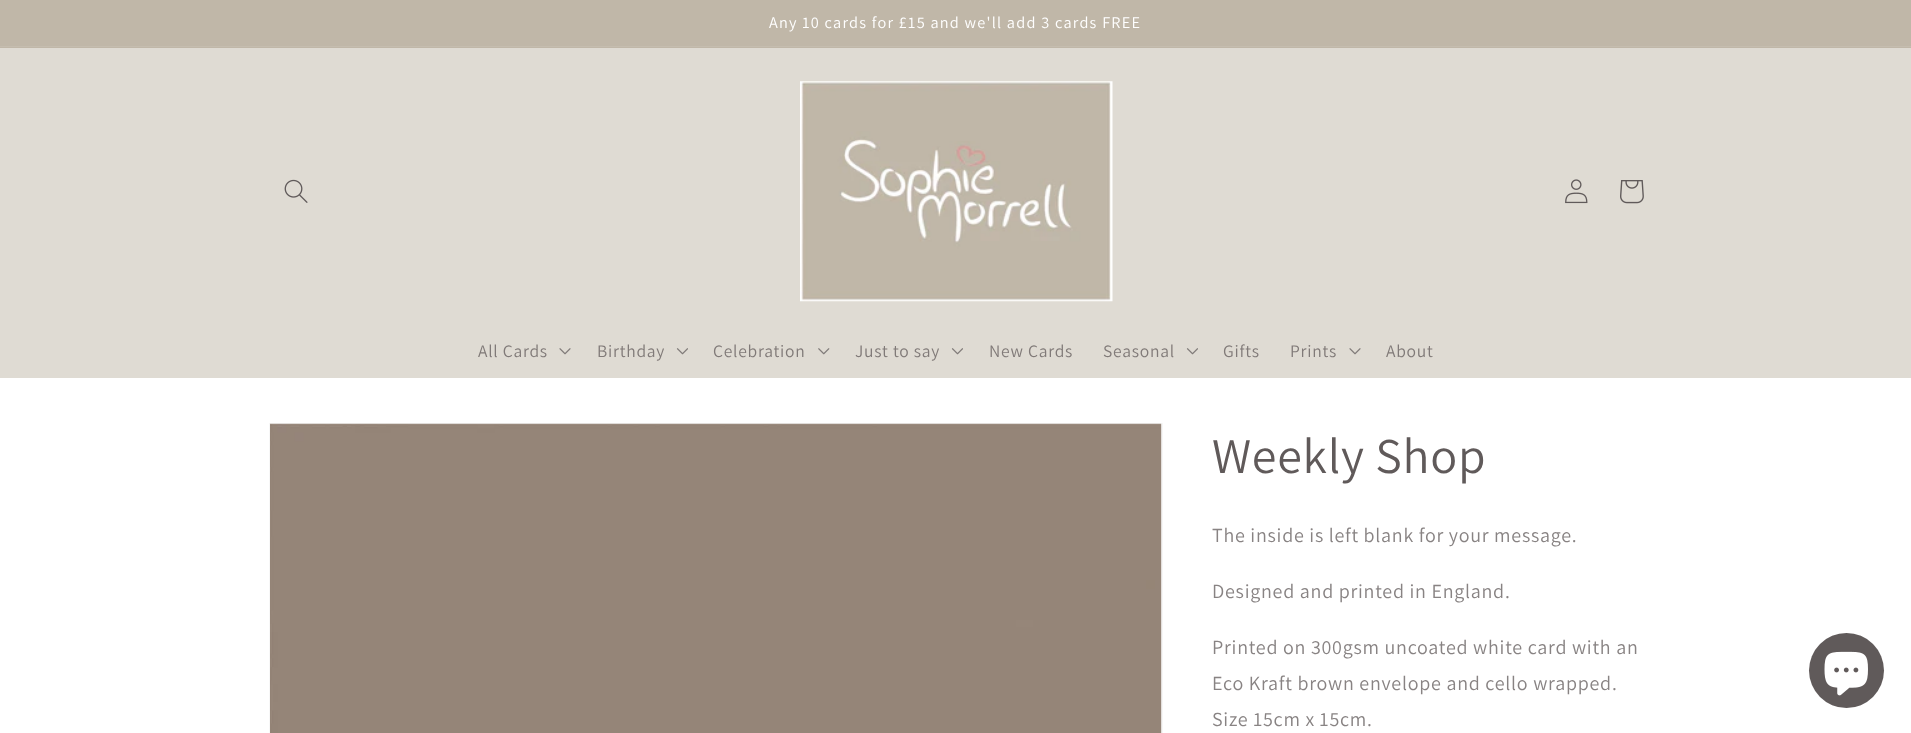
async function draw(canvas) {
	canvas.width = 1911;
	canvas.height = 733;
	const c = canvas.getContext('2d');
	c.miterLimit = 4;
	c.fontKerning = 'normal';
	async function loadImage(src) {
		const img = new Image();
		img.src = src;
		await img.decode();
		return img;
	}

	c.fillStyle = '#fff';
	c.fillRect(0, 0, 1911, 733);
	c.fillStyle = '#c0b7a8';
	c.fillRect(0, 0, 1911, 48);
	c.fillStyle = '#c5bdaf';
	c.fillRect(0, 46, 1911, 1);
	c.letterSpacing = '1.25px';
	c.font = '16.25px Assistant';
	c.fillStyle = '#fff';
	c.fillText('Any 10 cards for £15 and we\'ll add 3 cards FREE', 769, 28);
	c.fillStyle = '#dfdbd3';
	c.fillRect(0, 48, 1911, 330);
	c.drawImage(await loadImage('img1.png'), 284, 179, 24, 24);
	c.drawImage(await loadImage('img2.png'), 800, 81, 313, 221);
	c.drawImage(await loadImage('img3.png'), 1565, 179, 23, 25);
	c.drawImage(await loadImage('img4.png'), 1620, 180, 24, 24);
	c.letterSpacing = '0.75px';
	c.font = '17.5px Assistant';
	c.fillStyle = '#807a78';
	c.fillText('All Cards', 478, 357);
	c.drawImage(await loadImage('img5.png'), 559, 348, 12, 7);
	c.fillText('Birthday', 597, 357);
	c.drawImage(await loadImage('img6.png'), 676, 348, 12, 7);
	c.fillText('Celebration', 713, 357);
	c.drawImage(await loadImage('img7.png'), 818, 348, 12, 7);
	c.fillText('Just to say', 855, 357);
	c.drawImage(await loadImage('img6.png'), 951, 348, 12, 7);
	c.fillText('New Cards', 989, 357);
	c.fillText('Seasonal', 1103, 357);
	c.drawImage(await loadImage('img6.png'), 1186, 348, 12, 7);
	c.fillText('Gifts', 1223, 357);
	c.fillText('Prints', 1290, 357);
	c.drawImage(await loadImage('img5.png'), 1349, 348, 12, 7);
	c.fillText('About', 1386, 357);
	c.strokeStyle = '#f7f7f7';
	c.strokeRect(269.5, 423.5, 893, 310);
	c.drawImage(await loadImage('img8.png'), 270, 423, 892, 310);
	c.font = '50px Assistant';
	c.fillStyle = '#605a5a';
	c.fillText('Weekly Shop', 1212, 473);
	c.font = '20px Assistant';
	c.fillStyle = '#888383';
	for (const [text, x, y] of [
		['The inside is left blank for your message.', 1212, 542],
		['Designed and printed in England.', 1212, 598],
		['Printed on 300gsm uncoated white card with an', 1212, 654],
		['Eco Kraft brown envelope and cello wrapped.', 1212, 690],
		['Size 15cm x 15cm.', 1212, 726],
	]) {
		c.fillText(text, x, y);
	}
	c.fillStyle = '#605a5a';
	c.beginPath();
	c.arc(1846.5, 670.5, 37.5, 0, 2 * Math.PI);
	c.fill();
	c.drawImage(await loadImage('img9.png'), 1824, 651, 44, 45);
}

draw(document.querySelector('canvas'));
